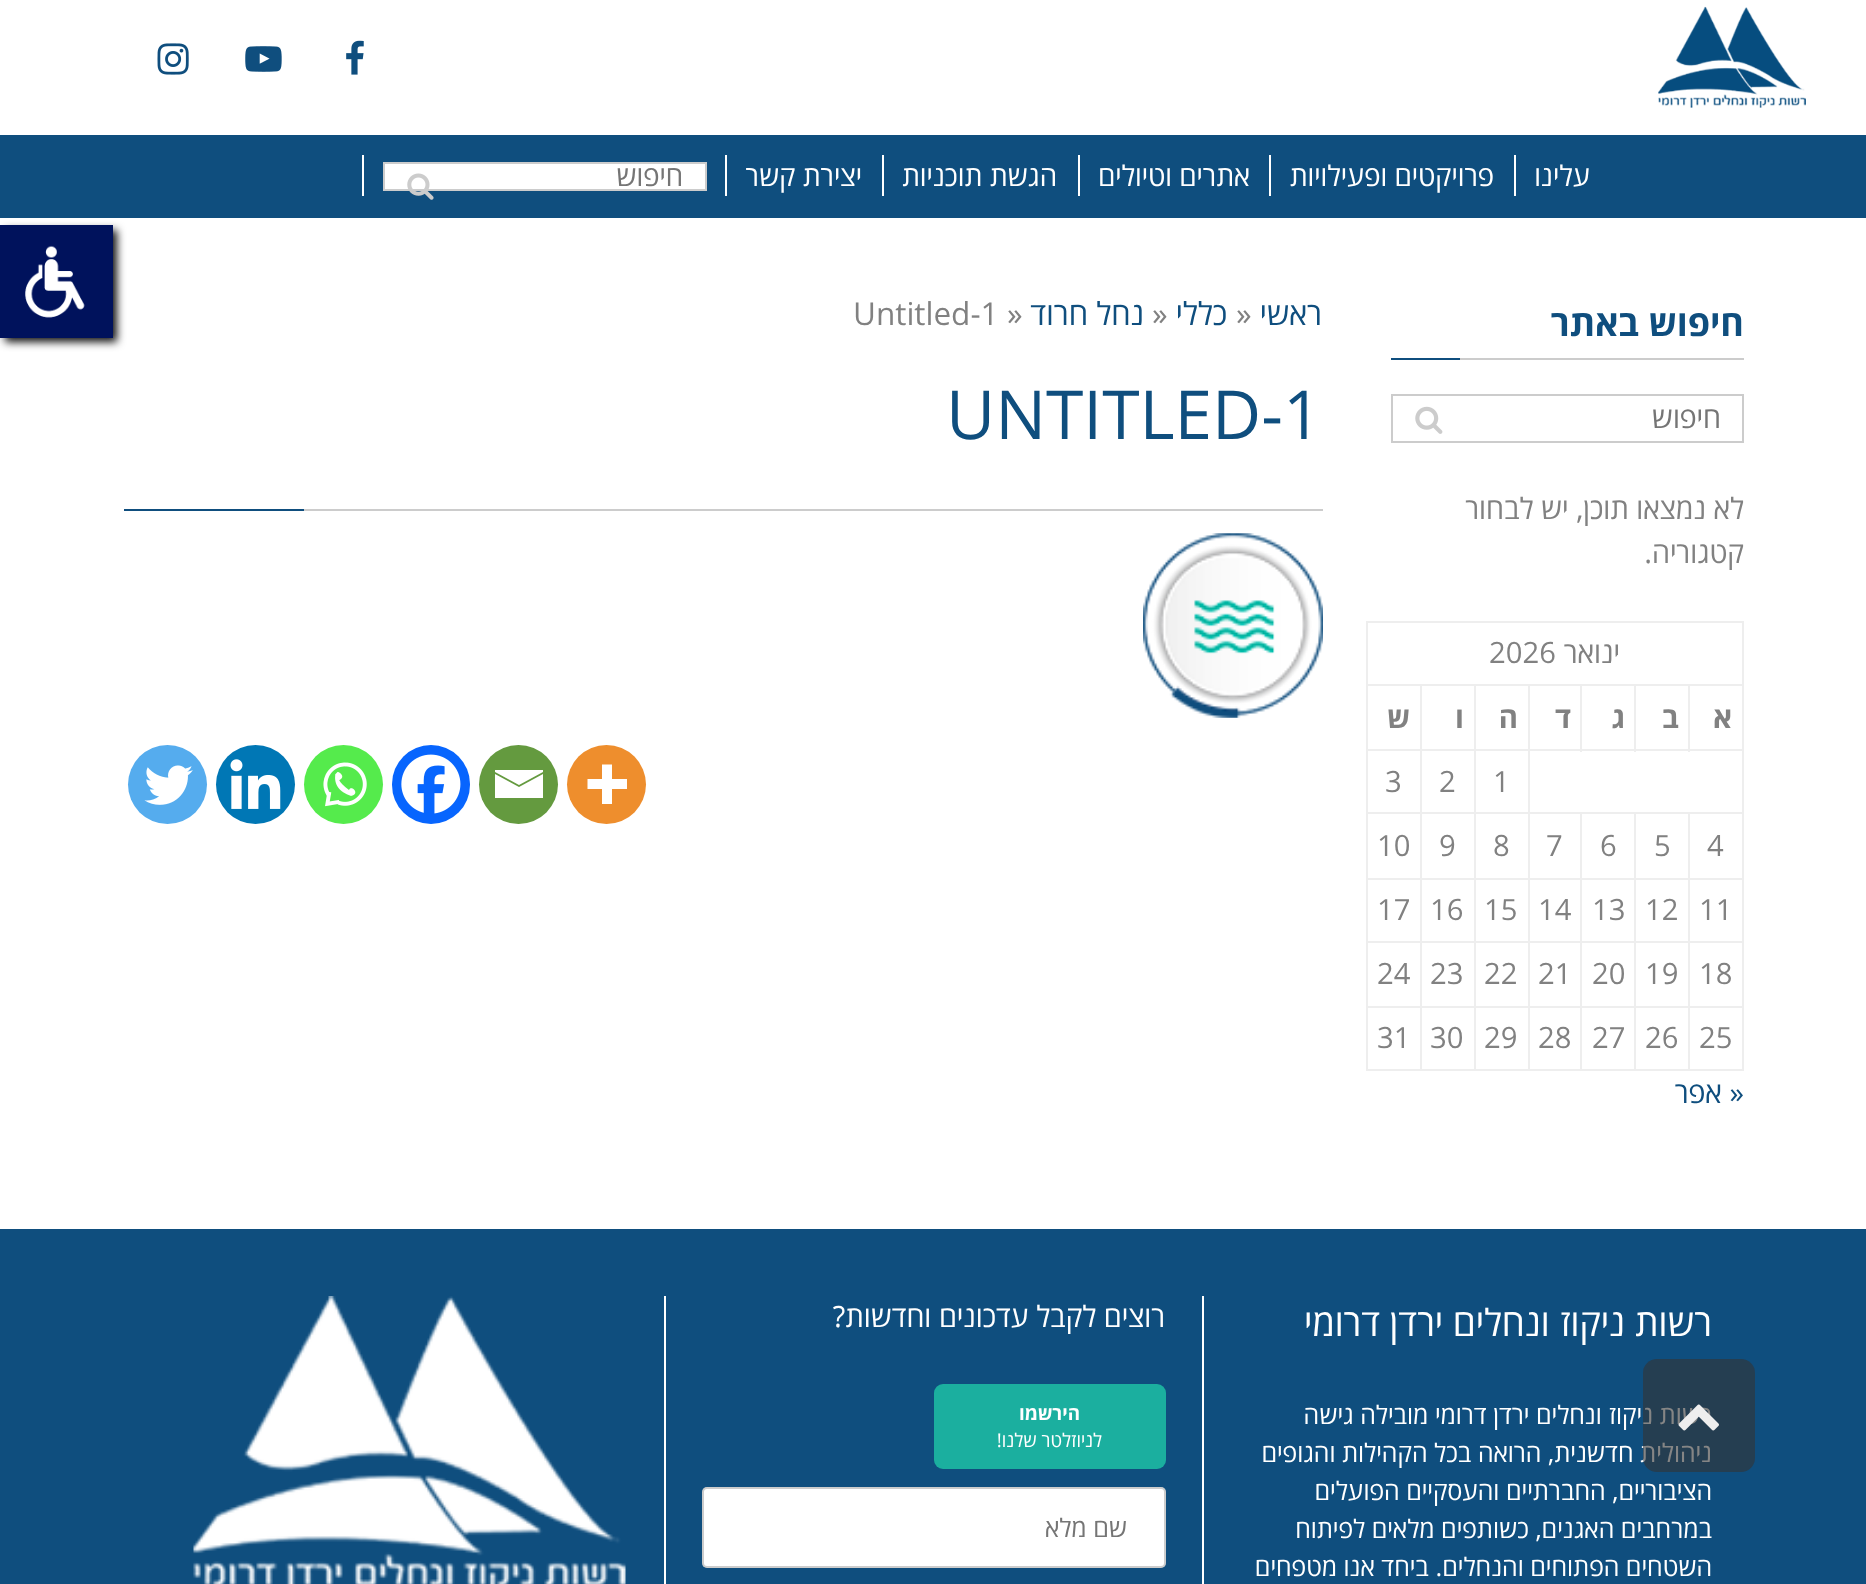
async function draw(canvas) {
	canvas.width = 1866;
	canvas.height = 1584;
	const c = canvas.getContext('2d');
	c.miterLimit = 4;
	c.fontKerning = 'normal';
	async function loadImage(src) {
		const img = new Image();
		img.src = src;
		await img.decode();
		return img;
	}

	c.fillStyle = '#fff';
	c.fillRect(0, 0, 1866, 1584);
	c.drawImage(await loadImage('img1.png'), 346, 40, 18, 35);
	c.drawImage(await loadImage('img2.png'), 245, 46, 37, 26);
	c.drawImage(await loadImage('img3.png'), 157, 43, 32, 32);
	c.fillStyle = '#0f4e7e';
	c.fillRect(0, 135, 1866, 83);
	c.drawImage(await loadImage('img4.png'), 1658, 6, 148, 102);
	c.direction = 'rtl';
	c.font = '28.25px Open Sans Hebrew';
	c.fillStyle = '#fff';
	c.fillText('עלינו', 1590, 186);
	c.fillRect(1514, 155, 2, 41);
	c.fillText('פרויקטים ופעילויות', 1494, 186);
	c.fillRect(1269, 155, 2, 41);
	c.fillText('אתרים וטיולים', 1250, 186);
	c.fillRect(1078, 155, 2, 41);
	c.fillText('הגשת תוכניות', 1057, 186);
	c.fillRect(882, 155, 2, 41);
	c.fillText('יצירת קשר', 862, 186);
	c.fillRect(725, 155, 2, 41);
	c.beginPath();
	c.rect(384, 163, 322, 27);
	c.fill();
	c.strokeStyle = '#ccc';
	c.lineWidth = 2;
	c.stroke();
	c.fillStyle = '#757575';
	c.fillText('חיפוש', 683, 186);
	c.drawImage(await loadImage('img5.png'), 407, 173, 27, 27);
	c.fillStyle = '#fff';
	c.fillRect(362, 155, 2, 41);
	c.fillStyle = '#ccc';
	c.fillRect(1460, 358, 284, 2);
	c.font = 'bold 36px Open Sans Hebrew';
	c.fillStyle = '#0f4e7e';
	c.fillText('חיפוש באתר', 1744, 336);
	c.fillRect(1391, 358, 69, 2);
	c.strokeRect(1392, 395, 351, 47);
	c.font = '29.25px Open Sans Hebrew';
	c.fillStyle = '#757575';
	c.fillText('חיפוש', 1721, 428);
	c.drawImage(await loadImage('img6.png'), 1415, 406, 28, 28);
	c.fillStyle = '#818181';
	c.fillText('לא נמצאו תוכן, יש לבחור', 1744, 519);
	c.fillText('קטגוריה.', 1744, 563);
	for (const [x, y, w, h, color] of [
		[1366, 621, 378, 2, '#eee'],
		[1742, 621, 2, 63, '#eee'],
		[1366, 621, 2, 63, '#eee'],
	]) {
		c.fillStyle = color;
		c.fillRect(x, y, w, h);
	}
	c.fillStyle = '#818181';
	c.fillText('ינואר', 1620, 663);
	c.direction = 'ltr';
	c.fillText('2026', 1489, 663);
	for (const [x, y, w, h, color] of [
		[1366, 684, 56, 2, '#eee'],
		[1366, 749, 56, 2, '#eee'],
		[1366, 812, 56, 2, '#eee'],
		[1366, 878, 56, 2, '#eee'],
		[1366, 941, 56, 2, '#eee'],
		[1366, 1006, 56, 2, '#eee'],
		[1420, 1006, 2, 65, '#eee'],
		[1420, 1006, 56, 2, '#eee'],
		[1420, 941, 2, 67, '#eee'],
		[1420, 941, 56, 2, '#eee'],
		[1420, 878, 2, 65, '#eee'],
		[1420, 878, 56, 2, '#eee'],
		[1420, 812, 2, 68, '#eee'],
		[1420, 812, 56, 2, '#eee'],
		[1420, 749, 2, 66, '#eee'],
		[1420, 749, 56, 2, '#eee'],
		[1420, 684, 2, 68, '#eee'],
		[1420, 684, 56, 2, '#eee'],
		[1474, 1006, 2, 65, '#eee'],
		[1474, 1006, 56, 2, '#eee'],
		[1474, 941, 2, 67, '#eee'],
		[1474, 941, 56, 2, '#eee'],
		[1474, 878, 2, 65, '#eee'],
		[1474, 878, 56, 2, '#eee'],
		[1474, 812, 2, 68, '#eee'],
		[1474, 812, 56, 2, '#eee'],
		[1474, 749, 2, 66, '#eee'],
		[1474, 749, 56, 2, '#eee'],
		[1474, 684, 2, 68, '#eee'],
		[1474, 684, 56, 2, '#eee'],
		[1528, 1006, 2, 65, '#eee'],
		[1528, 1006, 54, 2, '#eee'],
		[1528, 941, 2, 67, '#eee'],
		[1528, 941, 54, 2, '#eee'],
		[1528, 878, 2, 65, '#eee'],
		[1528, 878, 54, 2, '#eee'],
		[1528, 812, 2, 68, '#eee'],
		[1528, 812, 54, 2, '#eee'],
		[1528, 749, 2, 66, '#eee'],
		[1528, 749, 216, 2, '#eee'],
		[1528, 684, 2, 68, '#eee'],
		[1528, 684, 54, 2, '#eee'],
		[1580, 684, 2, 68, '#eee'],
		[1580, 684, 56, 2, '#eee'],
		[1634, 684, 2, 68, '#eee'],
		[1634, 684, 56, 2, '#eee'],
		[1688, 684, 2, 68, '#eee'],
		[1688, 684, 56, 2, '#eee'],
		[1580, 1006, 2, 65, '#eee'],
		[1580, 1006, 56, 2, '#eee'],
		[1580, 941, 2, 67, '#eee'],
		[1580, 941, 56, 2, '#eee'],
		[1580, 878, 2, 65, '#eee'],
		[1580, 878, 56, 2, '#eee'],
		[1580, 812, 2, 68, '#eee'],
		[1580, 812, 56, 2, '#eee'],
		[1634, 1006, 2, 65, '#eee'],
		[1634, 1006, 56, 2, '#eee'],
		[1634, 941, 2, 67, '#eee'],
		[1634, 941, 56, 2, '#eee'],
		[1634, 878, 2, 65, '#eee'],
		[1634, 878, 56, 2, '#eee'],
		[1634, 812, 2, 68, '#eee'],
		[1634, 812, 56, 2, '#eee'],
		[1688, 1006, 2, 65, '#eee'],
		[1688, 1006, 56, 2, '#eee'],
		[1688, 941, 2, 67, '#eee'],
		[1688, 941, 56, 2, '#eee'],
		[1688, 878, 2, 65, '#eee'],
		[1688, 878, 56, 2, '#eee'],
		[1688, 812, 2, 68, '#eee'],
		[1688, 812, 56, 2, '#eee'],
		[1742, 1006, 2, 65, '#eee'],
		[1742, 941, 2, 67, '#eee'],
		[1742, 878, 2, 65, '#eee'],
		[1742, 812, 2, 68, '#eee'],
		[1742, 749, 2, 66, '#eee'],
		[1742, 684, 2, 68, '#eee'],
	]) {
		c.fillStyle = color;
		c.fillRect(x, y, w, h);
	}
	c.direction = 'rtl';
	c.font = 'bold 29.25px Open Sans Hebrew';
	c.fillStyle = '#818181';
	for (const [text, x, y] of [
		['א', 1732, 728],
		['ב', 1679, 728],
		['ג', 1625, 728],
		['ד', 1571, 728],
		['ה', 1518, 728],
		['ו', 1464, 728],
	]) {
		c.fillText(text, x, y);
	}
	for (const [x, y, w, h, color] of [
		[1366, 1069, 56, 2, '#eee'],
		[1366, 1006, 2, 65, '#eee'],
		[1366, 941, 2, 67, '#eee'],
		[1366, 878, 2, 65, '#eee'],
		[1366, 812, 2, 68, '#eee'],
		[1366, 749, 2, 66, '#eee'],
		[1366, 684, 2, 68, '#eee'],
	]) {
		c.fillStyle = color;
		c.fillRect(x, y, w, h);
	}
	c.fillStyle = '#818181';
	c.fillText('ש', 1410, 728);
	c.direction = 'ltr';
	c.font = '29.25px Open Sans Hebrew';
	for (const [text, x, y] of [
		['1', 1493, 792],
		['2', 1439, 792],
		['3', 1385, 792],
		['4', 1707, 856],
		['5', 1654, 856],
		['6', 1600, 856],
		['7', 1546, 856],
		['8', 1493, 856],
		['9', 1439, 856],
		['10', 1377, 856],
		['11', 1699, 920],
		['12', 1645, 920],
		['13', 1592, 920],
		['14', 1538, 920],
		['15', 1484, 920],
		['16', 1430, 920],
		['17', 1377, 920],
		['18', 1699, 984],
		['19', 1645, 984],
		['20', 1592, 984],
		['21', 1538, 984],
		['22', 1484, 984],
		['23', 1430, 984],
		['24', 1377, 984],
	]) {
		c.fillText(text, x, y);
	}
	for (const [x, y, w, h, color] of [
		[1420, 1069, 56, 2, '#eee'],
		[1474, 1069, 56, 2, '#eee'],
		[1528, 1069, 54, 2, '#eee'],
		[1580, 1069, 56, 2, '#eee'],
		[1634, 1069, 56, 2, '#eee'],
		[1688, 1069, 56, 2, '#eee'],
	]) {
		c.fillStyle = color;
		c.fillRect(x, y, w, h);
	}
	c.fillStyle = '#818181';
	for (const [text, x, y] of [
		['25', 1699, 1048],
		['26', 1645, 1048],
		['27', 1592, 1048],
		['28', 1538, 1048],
		['29', 1484, 1048],
		['30', 1430, 1048],
		['31', 1377, 1048],
	]) {
		c.fillText(text, x, y);
	}
	c.direction = 'rtl';
	c.fillStyle = '#0f4e7e';
	c.fillText('« אפר', 1744, 1103);
	c.font = '31.5px Open Sans Hebrew';
	c.fillText('ראשי', 1322, 325);
	c.direction = 'ltr';
	c.fillStyle = '#818181';
	c.fillText('»', 1236, 325);
	c.direction = 'rtl';
	c.fillStyle = '#0f4e7e';
	c.fillText('כללי', 1227, 325);
	c.direction = 'ltr';
	c.fillStyle = '#818181';
	c.fillText('»', 1152, 325);
	c.direction = 'rtl';
	c.fillStyle = '#0f4e7e';
	c.fillText('נחל חרוד', 1144, 325);
	c.direction = 'ltr';
	c.fillStyle = '#818181';
	c.fillText('»', 1007, 325);
	c.fillText('Untitled-1', 853, 325);
	c.font = '67.5px Open Sans Hebrew';
	c.fillStyle = '#0f4e7e';
	c.fillText('UNTITLED-1', 946, 439);
	c.fillStyle = '#ccc';
	c.fillRect(304, 509, 1019, 2);
	c.fillStyle = '#0f4e7e';
	c.fillRect(124, 509, 180, 2);
	c.drawImage(await loadImage('img7.png'), 1143, 533, 180, 185);
	c.fillStyle = '#ee8e2d';
	c.beginPath();
	c.arc(606.5, 784.5, 39.5, 0, 2 * Math.PI);
	c.fill();
	c.fillStyle = '#fff';
	c.beginPath();
	c.moveTo(612, 779);
	c.lineTo(612, 764.5);
	c.lineTo(602, 764.5);
	c.lineTo(602, 779);
	c.lineTo(587.5, 779);
	c.lineTo(587.5, 789);
	c.lineTo(602, 789);
	c.lineTo(602, 804);
	c.lineTo(612, 804);
	c.lineTo(612, 789);
	c.lineTo(627, 789);
	c.lineTo(627, 779);
	c.closePath();
	c.fill('evenodd');
	c.fillStyle = '#649a3f';
	c.beginPath();
	c.arc(518.5, 784.5, 39.5, 0, 2 * Math.PI);
	c.fill();
	c.fillStyle = '#fff';
	c.beginPath();
	c.moveTo(493, 770);
	c.lineTo(543, 770);
	c.lineTo(543, 772);
	c.lineTo(519, 785);
	c.lineTo(495, 772);
	c.lineTo(495, 770);
	c.moveTo(495, 774);
	c.lineTo(519, 787);
	c.lineTo(543, 774);
	c.lineTo(543, 798);
	c.lineTo(495, 798);
	c.lineTo(495, 774);
	c.fill();
	c.fillStyle = '#0765fe';
	c.beginPath();
	c.roundRect(392, 745, 78, 79, 39);
	c.fill();
	c.drawImage(await loadImage('img8.png'), 401, 754, 60, 60);
	c.fillStyle = '#55eb4c';
	c.beginPath();
	c.arc(343.5, 784.5, 39.5, 0, 2 * Math.PI);
	c.fill();
	c.drawImage(await loadImage('img9.png'), 323, 762, 44, 45);
	c.fillStyle = '#0077b5';
	c.beginPath();
	c.arc(255.5, 784.5, 39.5, 0, 2 * Math.PI);
	c.fill();
	c.drawImage(await loadImage('img10.png'), 230, 759, 51, 50);
	c.fillStyle = '#55acee';
	c.beginPath();
	c.arc(167.5, 784.5, 39.5, 0, 2 * Math.PI);
	c.fill();
	c.drawImage(await loadImage('img11.png'), 144, 765, 49, 40);
	c.fillStyle = '#0f4e7e';
	c.fillRect(0, 1229, 1866, 355);
	c.direction = 'rtl';
	c.font = '37.4px Open Sans Hebrew';
	c.fillStyle = '#fff';
	c.fillText('רשות ניקוז ונחלים ירדן דרומי', 1712, 1336);
	c.font = '25.4px Open Sans Hebrew';
	for (const [text, x, y] of [
		['רשות ניקוז ונחלים ירדן דרומי מובילה גישה', 1712, 1424],
		['ניהולית חדשנית, הרואה בכל הקהילות והגופים', 1712, 1462],
		['הציבוריים, החברתיים והעסקיים הפועלים', 1712, 1500],
		['במרחבים האגנים, כשותפים מלאים לפיתוח', 1712, 1538],
		['השטחים הפתוחים והנחלים. ביחד אנו מטפחים', 1712, 1576],
	]) {
		c.fillText(text, x, y);
	}
	c.fillRect(1202, 1296, 2, 288);
	c.fillRect(664, 1296, 2, 288);
	c.font = '29.2px Open Sans Hebrew';
	c.fillText('רוצים לקבל עדכונים וחדשות?', 1165, 1327);
	c.fillStyle = '#1baf9f';
	c.beginPath();
	c.roundRect(934, 1384, 232, 85, 9);
	c.fill();
	c.font = 'bold 18.75px Open Sans Hebrew';
	c.fillStyle = '#fff';
	c.fillText('הירשמו', 1080, 1420);
	c.font = '18.75px Open Sans Hebrew';
	c.fillText('לניוזלטר שלנו!', 1102, 1447);
	c.beginPath();
	c.roundRect(702, 1487, 464, 81, 5);
	c.fill();
	c.beginPath();
	c.roundRect(703, 1488, 462, 79, 4);
	c.strokeStyle = '#00000033';
	c.stroke();
	c.font = '25.4px Open Sans Hebrew';
	c.fillStyle = '#757575';
	c.fillText('שם מלא', 1127, 1537);
	c.drawImage(await loadImage('img12.png'), 193, 1296, 433, 288);
	c.fillStyle = '#111';
	c.filter = 'blur(4.5px)';
	c.beginPath();
	c.rect(5, 230, 112, 112);
	c.fill();
	c.filter = 'none';
	c.drawImage(await loadImage('img13.png'), 0, 225, 113, 113);
	c.fillStyle = '#33333399';
	c.beginPath();
	c.roundRect(1643, 1359, 112, 113, 14);
	c.fill();
	c.drawImage(await loadImage('img14.png'), 1678, 1404, 41, 27);
}

draw(document.querySelector('canvas'));
